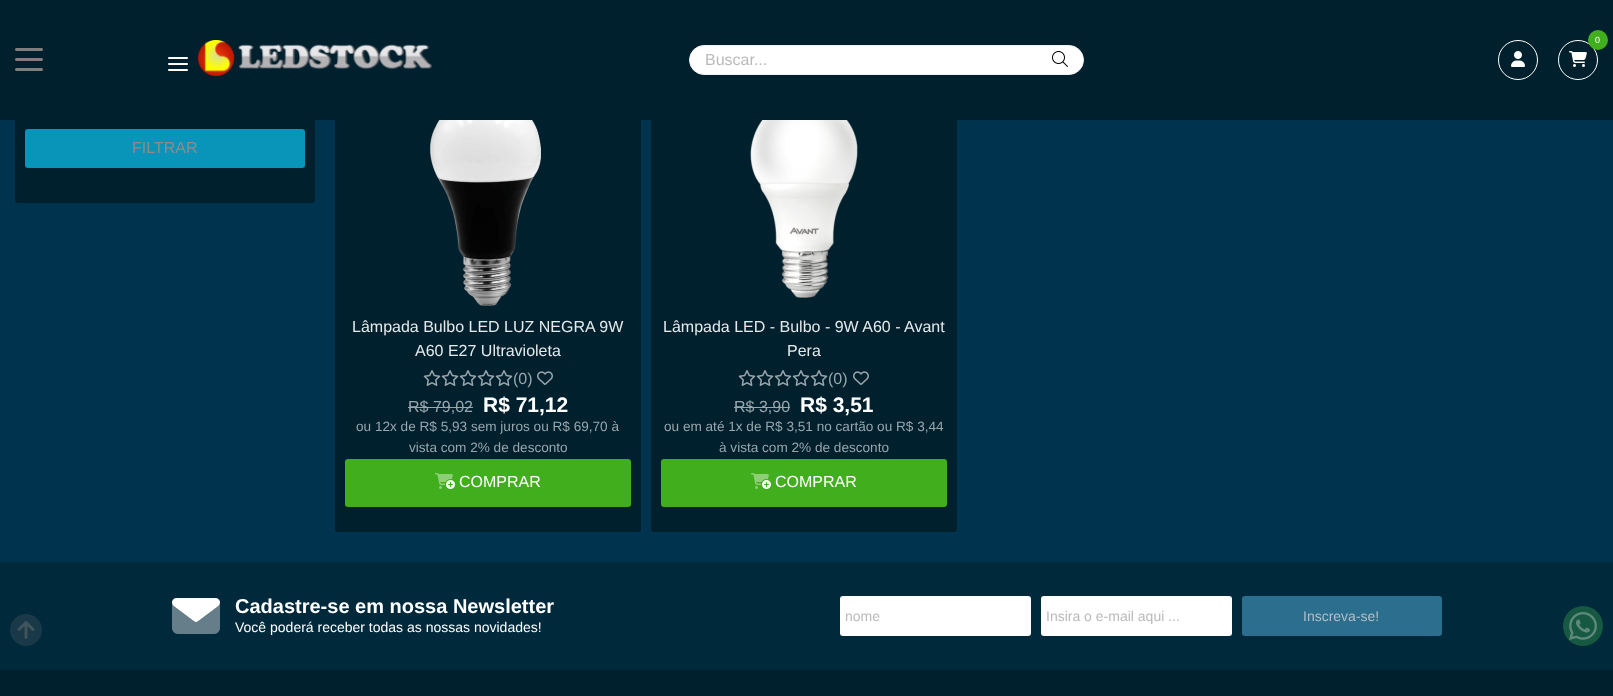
async function draw(canvas) {
	canvas.width = 1613;
	canvas.height = 696;
	const c = canvas.getContext('2d');
	c.miterLimit = 4;
	c.fontKerning = 'normal';
	async function loadImage(src) {
		const img = new Image();
		img.src = src;
		await img.decode();
		return img;
	}

	c.fillStyle = '#00334d';
	c.fillRect(0, 0, 1613, 696);
	c.fillStyle = '#00202e';
	c.beginPath();
	c.roundRect(15, -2, 300, 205, 3);
	c.fill();
	c.beginPath();
	c.roundRect(335, 75, 306, 457, 3);
	c.fill();
	c.beginPath();
	c.roundRect(651, 75, 306, 457, 3);
	c.fill();
	c.fillRect(0, 0, 1613, 120);
	c.drawImage(await loadImage('img1.png'), 15, 48, 28, 23);
	c.fillStyle = '#fff';
	c.beginPath();
	c.roundRect(168, 57, 20, 2, 1);
	c.fill();
	c.beginPath();
	c.roundRect(168, 63, 20, 2, 1);
	c.fill();
	c.beginPath();
	c.roundRect(168, 69, 20, 2, 1);
	c.fill();
	c.drawImage(await loadImage('img2.png'), 198, 40, 234, 36);
	c.beginPath();
	c.roundRect(689.5, 45.5, 394, 29, 14.5);
	c.fill();
	c.strokeStyle = '#f1f1f1';
	c.stroke();
	c.font = '16px Liberation Sans';
	c.fillStyle = '#bababa';
	c.fillText('Buscar...', 705, 65);
	c.drawImage(await loadImage('img3.png'), 1052, 51, 16, 16);
	c.beginPath();
	c.arc(1518, 60, 19.5, 0, 2 * Math.PI);
	c.strokeStyle = '#fff';
	c.stroke();
	c.drawImage(await loadImage('img4.png'), 1511, 51, 14, 16);
	c.beginPath();
	c.arc(1578, 60, 19.5, 0, 2 * Math.PI);
	c.stroke();
	c.fillStyle = '#41ae1d';
	c.beginPath();
	c.arc(1598, 40, 10, 0, 2 * Math.PI);
	c.fill();
	c.font = '9px Liberation Sans';
	c.fillStyle = '#fff';
	c.fillText('0', 1595, 43);
	c.drawImage(await loadImage('img5.png'), 1569, 51, 18, 16);
	c.fillStyle = '#0994ba';
	c.beginPath();
	c.roundRect(25, 129, 280, 39, 3);
	c.fill();
	c.font = '16px Liberation Sans';
	c.fillStyle = '#8f8c8c';
	c.fillText('FILTRAR', 132, 153);
	c.drawImage(await loadImage('img6.png'), 430, 120, 111, 186);
	c.fillStyle = '#e6e9ea';
	c.fillText('Lâmpada Bulbo LED LUZ NEGRA 9W', 352, 332);
	c.fillText('A60 E27 Ultravioleta', 415, 356);
	c.drawImage(await loadImage('img7.png'), 423, 370, 18, 16);
	c.drawImage(await loadImage('img7.png'), 441, 370, 18, 16);
	c.drawImage(await loadImage('img7.png'), 459, 370, 18, 16);
	c.drawImage(await loadImage('img7.png'), 477, 370, 18, 16);
	c.drawImage(await loadImage('img7.png'), 495, 370, 18, 16);
	c.fillStyle = '#99a6ab';
	c.fillText('(0)', 513, 384);
	c.drawImage(await loadImage('img8.png'), 537, 371, 16, 14);
	c.fillText('R$ 79,02', 408, 412);
	c.fillRect(408, 407, 65, 1);
	c.font = 'bold 21px Liberation Sans';
	c.fillStyle = '#fff';
	c.fillText('R$ 71,12', 483, 412);
	c.font = '13.6px Liberation Sans';
	c.fillStyle = '#99a6ab';
	c.fillText('ou 12x de R$ 5,93 sem juros ou R$ 69,70 à', 356, 431);
	c.fillText('vista com 2% de desconto', 409, 452);
	c.fillStyle = '#41ae1d';
	c.beginPath();
	c.roundRect(345, 459, 286, 48, 3);
	c.fill();
	c.drawImage(await loadImage('img9.png'), 435, 473, 20, 16);
	c.font = '16px Liberation Sans';
	c.fillStyle = '#fff';
	c.fillText('COMPRAR', 459, 487);
	c.drawImage(await loadImage('img10.png'), 750, 120, 108, 179);
	c.fillStyle = '#e6e9ea';
	c.fillText('Lâmpada LED - Bulbo - 9W A60 - Avant', 663, 332);
	c.fillText('Pera', 787, 356);
	c.drawImage(await loadImage('img7.png'), 738, 370, 18, 16);
	c.drawImage(await loadImage('img7.png'), 756, 370, 18, 16);
	c.drawImage(await loadImage('img7.png'), 774, 370, 18, 16);
	c.drawImage(await loadImage('img7.png'), 792, 370, 18, 16);
	c.drawImage(await loadImage('img7.png'), 810, 370, 18, 16);
	c.fillStyle = '#99a6ab';
	c.fillText('(0)', 828, 384);
	c.drawImage(await loadImage('img8.png'), 853, 371, 16, 14);
	c.fillText('R$ 3,90', 734, 412);
	c.fillRect(734, 407, 56, 1);
	c.font = 'bold 21px Liberation Sans';
	c.fillStyle = '#fff';
	c.fillText('R$ 3,51', 800, 412);
	c.font = '13.6px Liberation Sans';
	c.fillStyle = '#99a6ab';
	c.fillText('ou em até 1x de R$ 3,51 no cartão ou R$ 3,44', 664, 431);
	c.fillText('à vista com 2% de desconto', 719, 452);
	c.fillStyle = '#41ae1d';
	c.beginPath();
	c.roundRect(661, 459, 286, 48, 3);
	c.fill();
	c.drawImage(await loadImage('img9.png'), 751, 473, 20, 16);
	c.font = '16px Liberation Sans';
	c.fillStyle = '#fff';
	c.fillText('COMPRAR', 775, 487);
	c.fillStyle = '#00293b';
	c.fillRect(0, 562, 1613, 108);
	c.drawImage(await loadImage('img11.png'), 10, 614, 32, 32);
	c.drawImage(await loadImage('img12.png'), 172, 598, 48, 36);
	c.font = 'bold 20px Liberation Sans';
	c.fillStyle = '#fff';
	c.fillText('Cadastre-se em nossa Newsletter', 235, 613);
	c.font = '14px Liberation Sans';
	c.fillText('Você poderá receber todas as nossas novidades!', 235, 632);
	c.beginPath();
	c.roundRect(840, 596, 191, 40, 3);
	c.fill();
	c.fillStyle = '#bababa';
	c.fillText('nome', 845, 621);
	c.fillStyle = '#fff';
	c.beginPath();
	c.roundRect(1041, 596, 191, 40, 3);
	c.fill();
	c.fillStyle = '#bababa';
	c.fillText('Insira o e-mail aqui ...', 1046, 621);
	c.fillStyle = '#2b6e8e';
	c.beginPath();
	c.roundRect(1242, 596, 200, 40, 3);
	c.fill();
	c.fillStyle = '#b3bfc4';
	c.fillText('Inscreva-se!', 1303, 621);
	c.fillStyle = '#175843';
	c.beginPath();
	c.arc(1583, 626, 20, 0, 2 * Math.PI);
	c.fill();
	c.drawImage(await loadImage('img13.png'), 1569, 612, 28, 28);
	c.fillStyle = '#00202e';
	c.fillRect(0, 670, 1613, 26);
}

draw(document.querySelector('canvas'));
